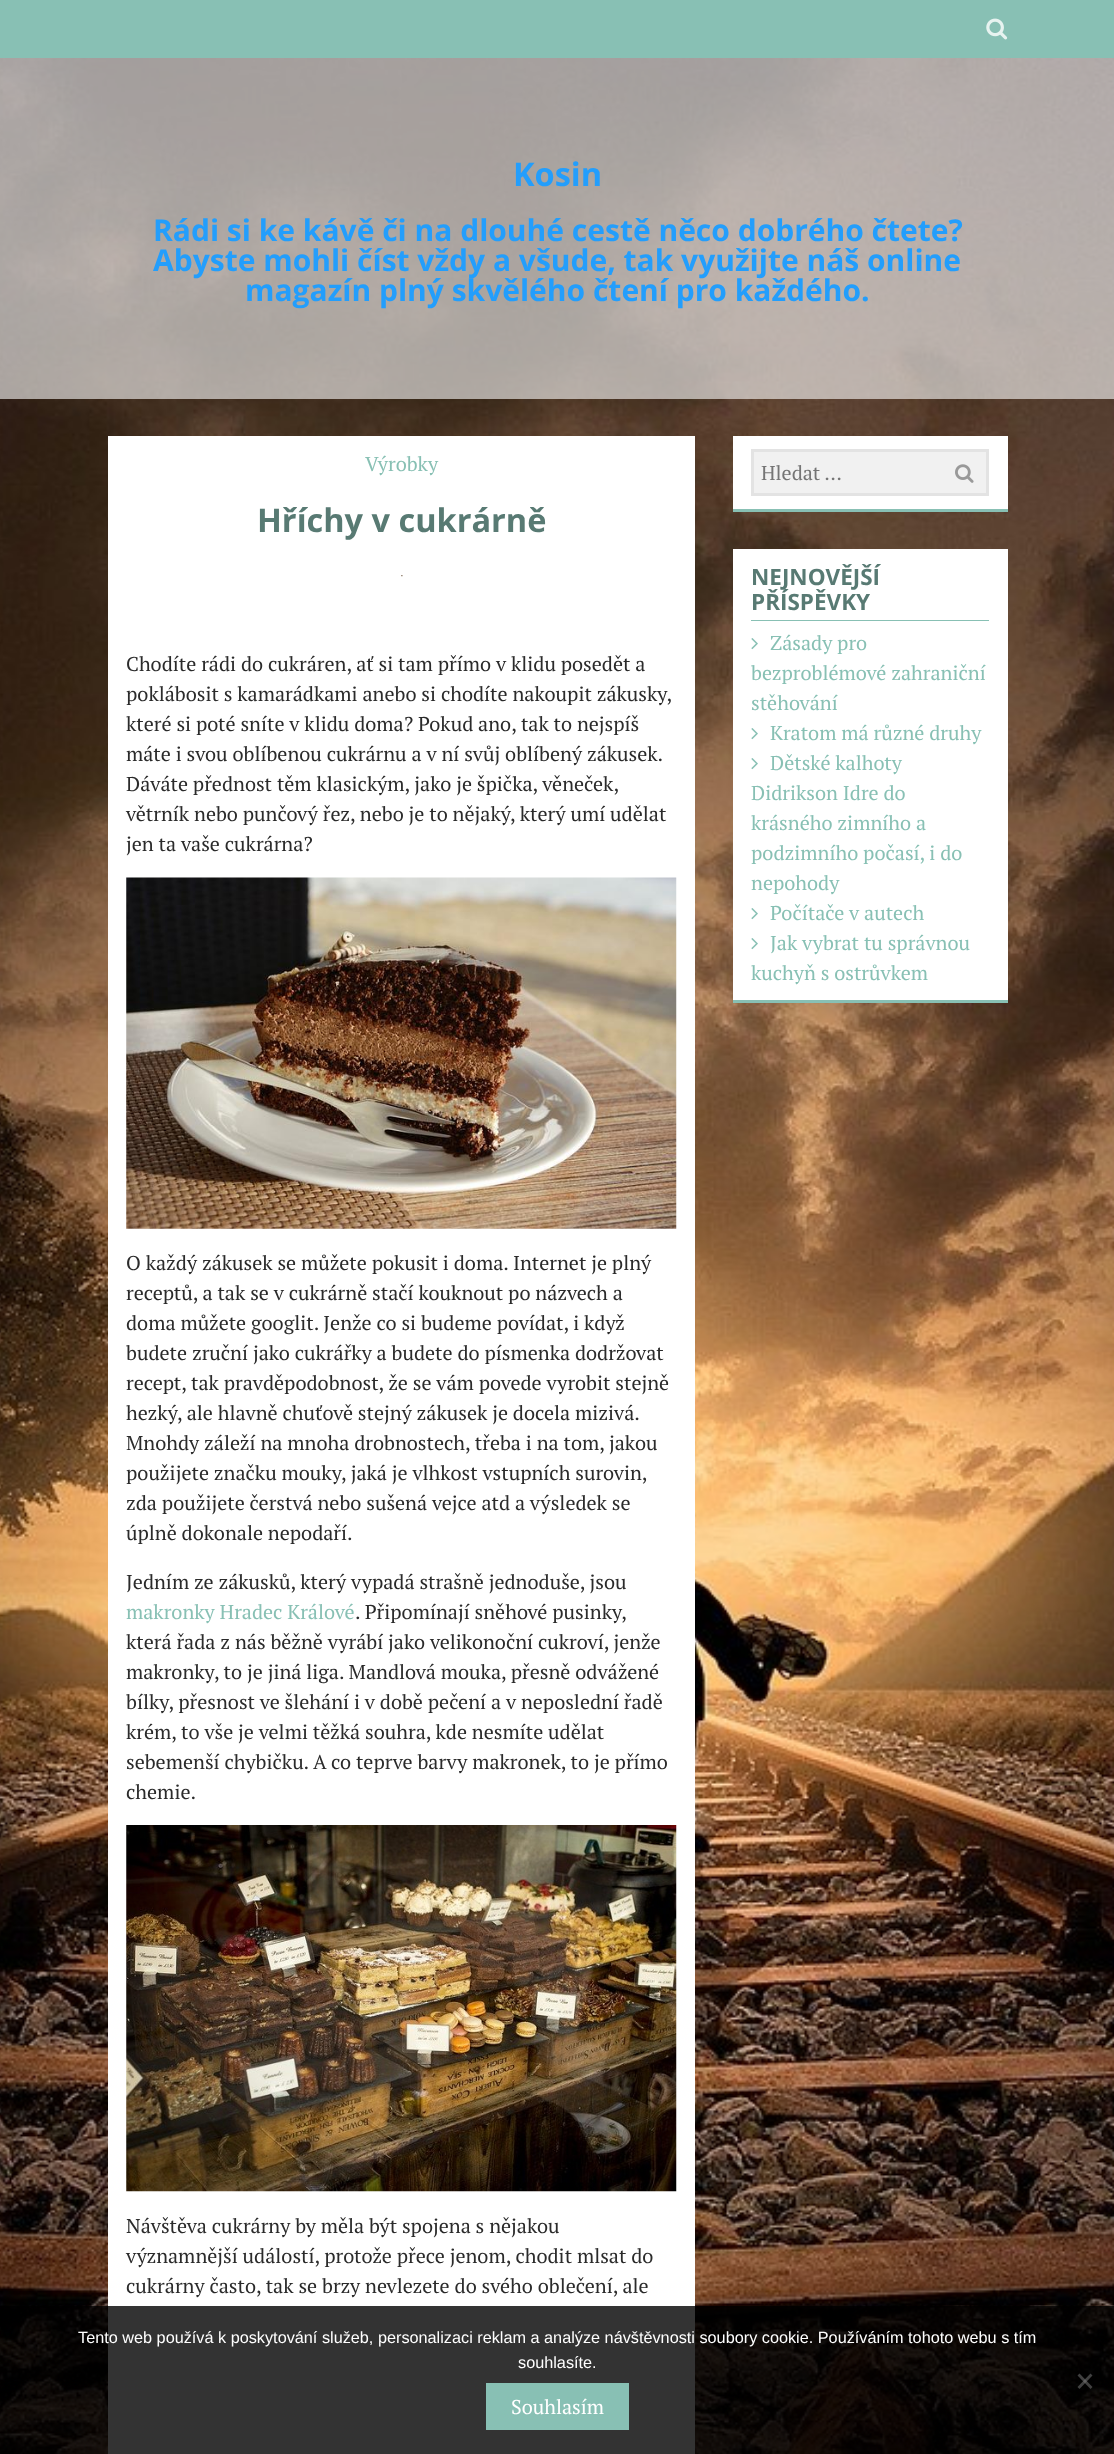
async function draw(canvas) {
	canvas.width = 1114;
	canvas.height = 2454;
	const c = canvas.getContext('2d');
	c.miterLimit = 4;
	c.fontKerning = 'normal';
	async function loadImage(src) {
		const img = new Image();
		img.src = src;
		await img.decode();
		return img;
	}

	c.fillStyle = '#fff';
	c.fillRect(0, 0, 1114, 2454);
	c.drawImage(await loadImage('img1.png'), 0, 58, 1114, 2396);
	c.fillStyle = '#88c0b4';
	c.fillRect(0, 0, 1114, 58);
	c.drawImage(await loadImage('img2.png'), 986, 18, 22, 22);
	c.fillStyle = '#ffffff99';
	c.fillRect(0, 58, 1114, 341);
	c.font = 'bold 32.5px Open Sans';
	c.fillStyle = '#239efc';
	c.fillText('Kosin', 513, 186);
	c.font = 'bold 30px Open Sans';
	for (const [text, x, y] of [
		['Rádi si ke kávě či na dlouhé cestě něco dobrého čtete?', 153, 241],
		['Abyste mohli číst vždy a všude, tak využijte náš online', 153, 271],
		['magazín plný skvělého čtení pro každého.', 245, 301],
	]) {
		c.fillText(text, x, y);
	}
	c.fillStyle = '#fff';
	c.fillRect(108, 436, 587, 2018);
	c.font = '20px PT Serif';
	c.fillStyle = '#88c0b4';
	c.fillText('Výrobky', 365, 471);
	c.font = 'bold 32.5px Open Sans';
	c.fillStyle = '#587a73';
	c.fillText('Hříchy v cukrárně', 257, 532);
	c.drawImage(await loadImage('img3.png'), 401, 575, 2, 2);
	c.font = '20px PT Serif';
	c.fillStyle = '#2b2b2b';
	for (const [text, x, y] of [
		['Chodíte rádi do cukráren, ať si tam přímo v klidu posedět a', 126, 671],
		['poklábosit s kamarádkami anebo si chodíte nakoupit zákusky,', 126, 701],
		['které si poté sníte v klidu doma? Pokud ano, tak to nejspíš', 126, 731],
		['máte i svou oblíbenou cukrárnu a v ní svůj oblíbený zákusek.', 126, 761],
		['Dáváte přednost těm klasickým, jako je špička, věneček,', 126, 791],
		['větrník nebo punčový řez, nebo je to nějaký, který umí udělat', 126, 821],
		['jen ta vaše cukrárna?', 126, 851],
	]) {
		c.fillText(text, x, y);
	}
	c.drawImage(await loadImage('img4.png'), 126, 877, 551, 352);
	for (const [text, x, y] of [
		['O každý zákusek se můžete pokusit i doma. Internet je plný', 126, 1270],
		['receptů, a tak se v cukrárně stačí kouknout po názvech a', 126, 1300],
		['doma můžete googlit. Jenže co si budeme povídat, i když', 126, 1330],
		['budete zruční jako cukrářky a budete do písmenka dodržovat', 126, 1360],
		['recept, tak pravděpodobnost, že se vám povede vyrobit stejně', 126, 1390],
		['hezký, ale hlavně chuťově stejný zákusek je docela mizivá.', 126, 1420],
		['Mnohdy záleží na mnoha drobnostech, třeba i na tom, jakou', 126, 1450],
		['použijete značku mouky, jaká je vlhkost vstupních surovin,', 126, 1480],
		['zda použijete čerstvá nebo sušená vejce atd a výsledek se', 126, 1510],
		['úplně dokonale nepodaří.', 126, 1540],
		['Jedním ze zákusků, který vypadá strašně jednoduše, jsou', 126, 1589],
	]) {
		c.fillText(text, x, y);
	}
	c.fillStyle = '#88c0b4';
	c.fillText('makronky Hradec Králové', 126, 1619);
	c.fillStyle = '#2b2b2b';
	for (const [text, x, y] of [
		['. Připomínají sněhové pusinky,', 355, 1619],
		['která řada z nás běžně vyrábí jako velikonoční cukroví, jenže', 126, 1649],
		['makronky, to je jiná liga. Mandlová mouka, přesně odvážené', 126, 1679],
		['bílky, přesnost ve šlehání i v době pečení a v neposlední řadě', 126, 1709],
		['krém, to vše je velmi těžká souhra, kde nesmíte udělat', 126, 1739],
		['sebemenší chybičku. A co teprve barvy makronek, to je přímo', 126, 1769],
		['chemie.', 126, 1799],
	]) {
		c.fillText(text, x, y);
	}
	c.drawImage(await loadImage('img5.png'), 126, 1825, 551, 367);
	for (const [text, x, y] of [
		['Návštěva cukrárny by měla být spojena s nějakou', 126, 2233],
		['významnější událostí, protože přece jenom, chodit mlsat do', 126, 2263],
		['cukrárny často, tak se brzy nevlezete do svého oblečení, ale', 126, 2293],
	]) {
		c.fillText(text, x, y);
	}
	c.fillStyle = '#fff';
	c.fillRect(733, 436, 275, 73);
	c.fillStyle = '#88c0b4';
	c.fillRect(733, 509, 275, 3);
	c.fillStyle = '#f1f1f1';
	c.beginPath();
	c.rect(752.5, 450.5, 235, 44);
	c.fill();
	c.strokeStyle = '#e3e3e3';
	c.lineWidth = 3;
	c.stroke();
	c.fillStyle = '#757575';
	c.fillText('Hledat …', 761, 480);
	c.drawImage(await loadImage('img6.png'), 955, 464, 19, 19);
	for (const [x, y, w, h, color] of [
		[733, 549, 275, 451, '#fff'],
		[733, 1000, 275, 3, '#88c0b4'],
		[751, 620, 238, 1, '#88c0b4'],
	]) {
		c.fillStyle = color;
		c.fillRect(x, y, w, h);
	}
	c.font = 'bold 22.5px Open Sans';
	c.fillStyle = '#587a73';
	c.fillText('NEJNOVĚJŠÍ', 751, 585);
	c.fillText('PŘÍSPĚVKY', 751, 610);
	c.drawImage(await loadImage('img7.png'), 751, 638, 7, 12);
	c.font = '20px PT Serif';
	c.fillStyle = '#88c0b4';
	for (const [text, x, y] of [
		['Zásady pro', 770, 650],
		['bezproblémové zahraniční', 751, 680],
		['stěhování', 751, 710],
	]) {
		c.fillText(text, x, y);
	}
	c.drawImage(await loadImage('img7.png'), 751, 728, 7, 12);
	c.fillText('Kratom má různé druhy', 770, 740);
	c.drawImage(await loadImage('img7.png'), 751, 758, 7, 12);
	for (const [text, x, y] of [
		['Dětské kalhoty', 770, 770],
		['Didrikson Idre do', 751, 800],
		['krásného zimního a', 751, 830],
		['podzimního počasí, i do', 751, 860],
		['nepohody', 751, 890],
	]) {
		c.fillText(text, x, y);
	}
	c.drawImage(await loadImage('img7.png'), 751, 908, 7, 12);
	c.fillText('Počítače v autech', 770, 920);
	c.drawImage(await loadImage('img7.png'), 751, 938, 7, 12);
	c.fillText('Jak vybrat tu správnou', 770, 950);
	c.fillText('kuchyň s ostrůvkem', 751, 980);
	c.fillStyle = '#000000cc';
	c.fillRect(0, 2306, 1114, 148);
	c.font = '16.25px Liberation Sans';
	c.fillStyle = '#fff';
	c.fillText('Tento web používá k poskytování služeb, personalizaci reklam a analýze návštěvnosti soubory cookie. Používáním tohoto webu s tím', 78, 2343);
	c.fillText('souhlasíte.', 518, 2368);
	c.fillStyle = '#80808080';
	c.beginPath();
	c.moveTo(1090.5, 2373.5);
	c.lineTo(1092.5, 2375.5);
	c.lineTo(1079.5, 2389);
	c.lineTo(1077.5, 2387);
	c.closePath();
	c.fill();
	c.beginPath();
	c.moveTo(1077.5, 2375.5);
	c.lineTo(1079.5, 2373.5);
	c.lineTo(1092.5, 2387);
	c.lineTo(1090.5, 2389);
	c.closePath();
	c.fill();
	c.fillStyle = '#88c0b4';
	c.fillRect(486, 2383, 143, 47);
	c.font = '20px PT Serif';
	c.fillStyle = '#fff';
	c.fillText('Souhlasím', 511, 2414);
}

draw(document.querySelector('canvas'));
